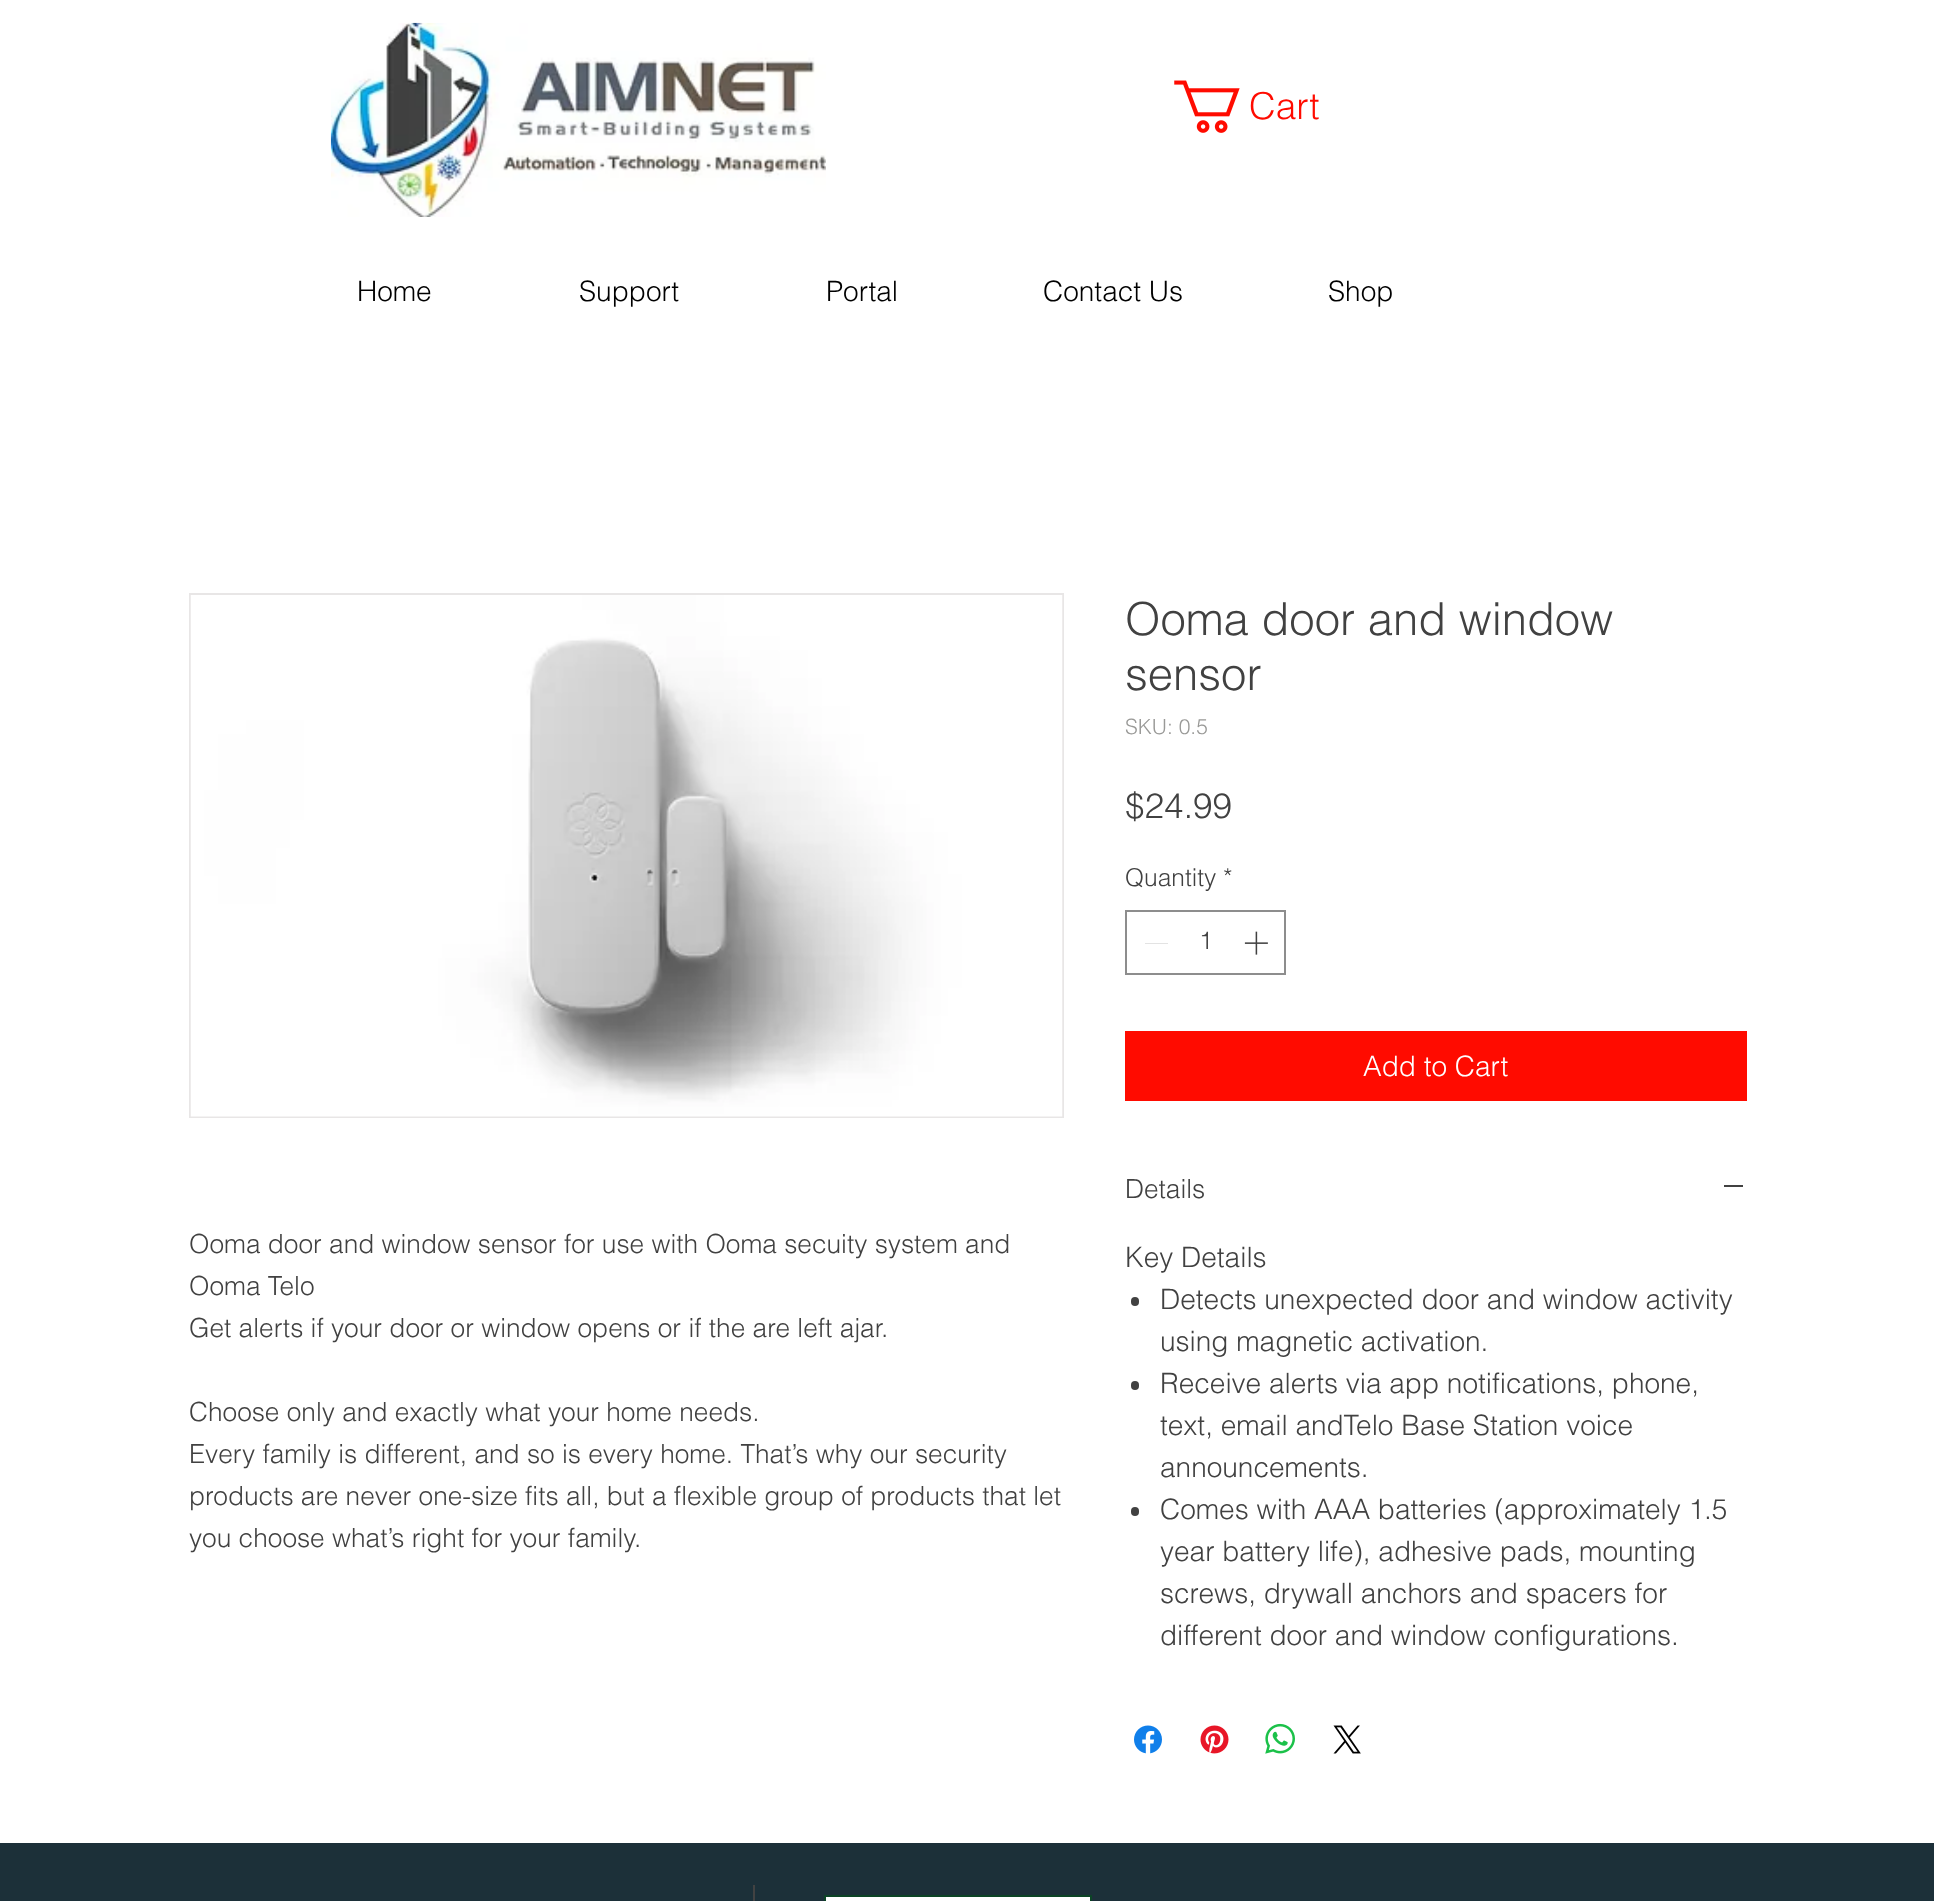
async function draw(canvas) {
	canvas.width = 1934;
	canvas.height = 1901;
	const c = canvas.getContext('2d');
	c.miterLimit = 4;
	c.fontKerning = 'normal';
	async function loadImage(src) {
		const img = new Image();
		img.src = src;
		await img.decode();
		return img;
	}

	c.fillStyle = '#fff';
	c.fillRect(0, 0, 1934, 1901);
	c.drawImage(await loadImage('img1.png'), 330, 22, 496, 195);
	c.drawImage(await loadImage('img2.png'), 1174, 80, 66, 53);
	c.font = '300 37px helvetica';
	c.fillStyle = '#ff0b00';
	c.fillText('Cart', 1249, 119);
	c.font = '300 28px helvetica';
	c.fillStyle = '#000';
	for (const [text, x, y] of [
		['Home', 357, 301],
		['Support', 579, 301],
		['Portal', 826, 301],
		['Contact Us', 1043, 301],
		['Shop', 1328, 301],
	]) {
		c.fillText(text, x, y);
	}
	c.strokeStyle = '#e8e6e6';
	c.lineWidth = 2;
	c.strokeRect(190, 594, 873, 523);
	c.drawImage(await loadImage('img3.png'), 190, 595, 873, 522);
	c.font = '300 26.25px helvetica';
	c.fillStyle = '#414141';
	for (const [text, x, y] of [
		['Ooma door and window sensor for use with Ooma secuity system and', 189, 1253],
		['Ooma Telo', 189, 1295],
		['Get alerts if your door or window opens or if the are left ajar.', 189, 1337],
		['Choose only and exactly what your home needs.', 189, 1421],
		['Every family is different, and so is every home. That’s why our security', 189, 1463],
		['products are never one-size fits all, but a flexible group of products that let', 189, 1505],
		['you choose what’s right for your family.', 189, 1547],
	]) {
		c.fillText(text, x, y);
	}
	c.font = '300 45.5px helvetica';
	c.fillText('Ooma door and window', 1125, 635);
	c.fillText('sensor', 1125, 690);
	c.font = '300 21px helvetica';
	c.fillStyle = '#999997';
	c.fillText('SKU: 0.5', 1125, 734);
	c.font = '300 35px helvetica';
	c.fillStyle = '#414141';
	c.fillText('$24.99', 1125, 818);
	c.font = '300 24.5px helvetica';
	c.fillText('Quantity *', 1125, 886);
	c.strokeStyle = '#8d8d8d';
	c.strokeRect(1126, 911, 159, 63);
	c.fillStyle = '#e3e3e3';
	c.fillRect(1145, 943, 23, 1);
	c.fillStyle = '#414141';
	c.fillText('1', 1199, 949);
	c.drawImage(await loadImage('img4.png'), 1244, 931, 24, 24);
	c.fillStyle = '#ff0b00';
	c.fillRect(1125, 1031, 622, 70);
	c.font = '300 28px helvetica';
	c.fillStyle = '#fff';
	c.fillText('Add to Cart', 1363, 1076);
	c.font = '300 26.25px helvetica';
	c.fillStyle = '#414141';
	c.fillText('Details', 1125, 1198);
	c.fillRect(1724, 1185, 19, 2);
	c.font = '300 28px helvetica';
	c.fillText('Key Details', 1125, 1267);
	c.beginPath();
	c.roundRect(1131, 1297, 8, 9, 4);
	c.fill();
	c.fillText('Detects unexpected door and window activity', 1160, 1309);
	c.fillText('using magnetic activation.', 1160, 1351);
	c.beginPath();
	c.roundRect(1131, 1381, 8, 9, 4);
	c.fill();
	for (const [text, x, y] of [
		['Receive alerts via app notifications, phone,', 1160, 1393],
		['text, email andTelo Base Station voice', 1160, 1435],
		['announcements.', 1160, 1477],
	]) {
		c.fillText(text, x, y);
	}
	c.beginPath();
	c.roundRect(1131, 1507, 8, 9, 4);
	c.fill();
	for (const [text, x, y] of [
		['Comes with AAA batteries (approximately 1.5', 1160, 1519],
		['year battery life), adhesive pads, mounting', 1160, 1561],
		['screws, drywall anchors and spacers for', 1160, 1603],
		['different door and window configurations.', 1160, 1645],
	]) {
		c.fillText(text, x, y);
	}
	c.drawImage(await loadImage('img5.png'), 1134, 1725, 28, 29);
	c.drawImage(await loadImage('img6.png'), 1200, 1725, 29, 29);
	c.drawImage(await loadImage('img7.png'), 1265, 1723, 30, 31);
	c.drawImage(await loadImage('img8.png'), 1333, 1725, 28, 29);
	c.fillStyle = '#1c3039';
	c.fillRect(0, 1843, 1934, 58);
	c.fillStyle = '#424242';
	c.fillRect(753, 1885, 2, 16);
	c.fillStyle = '#fff';
	c.beginPath();
	c.rect(825, 1896, 266, 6);
	c.fill();
	c.strokeStyle = '#0c4426';
	c.stroke();
}

draw(document.querySelector('canvas'));
